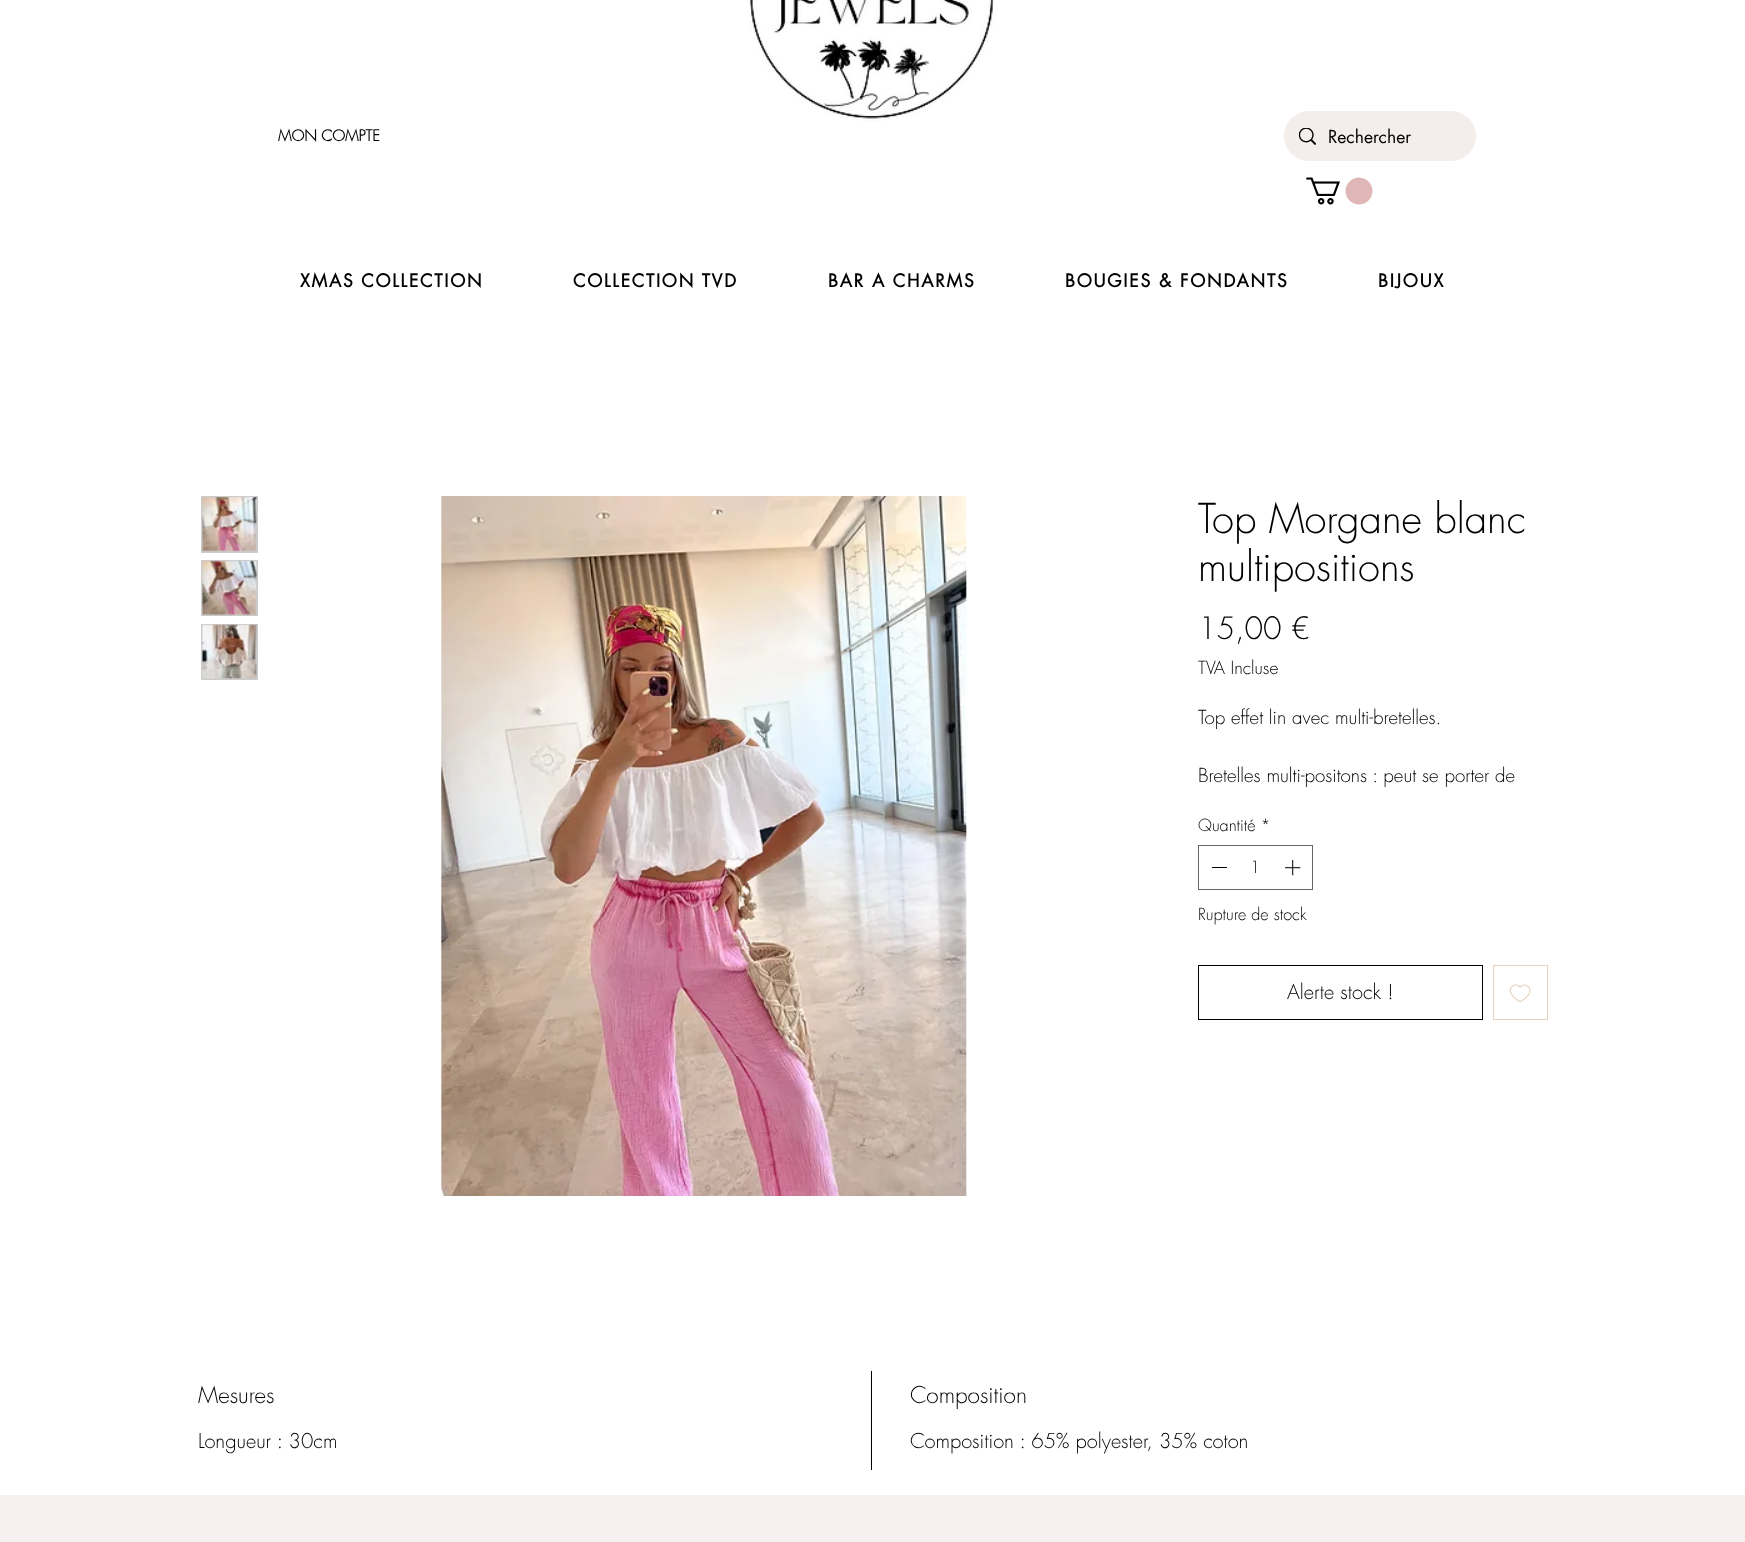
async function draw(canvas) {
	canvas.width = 1745;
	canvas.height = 1542;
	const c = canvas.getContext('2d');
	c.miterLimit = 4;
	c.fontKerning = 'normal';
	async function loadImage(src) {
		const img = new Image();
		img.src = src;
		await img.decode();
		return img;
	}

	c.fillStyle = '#fff';
	c.fillRect(0, 0, 1745, 1542);
	c.drawImage(await loadImage('img1.png'), 749, 0, 245, 121);
	c.font = 'bold 15px futura';
	c.fillStyle = '#000';
	c.fillText('MON COMPTE', 278, 141);
	c.fillStyle = '#f3eeeb';
	c.beginPath();
	c.roundRect(1284, 111, 192, 50, 25);
	c.fill();
	c.drawImage(await loadImage('img2.png'), 1299, 128, 17, 17);
	c.font = '17.5px futura';
	c.fillStyle = '#000';
	c.fillText('Rechercher', 1328, 143);
	c.drawImage(await loadImage('img3.png'), 1306, 177, 67, 28);
	c.letterSpacing = '1.75px';
	c.font = 'bold 17.5px "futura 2"';
	for (const [text, x, y] of [
		['XMAS COLLECTION', 300, 287],
		['COLLECTION TVD', 573, 287],
		['BAR A CHARMS', 828, 287],
		['BOUGIES & FONDANTS', 1065, 287],
		['BIJOUX', 1378, 287],
	]) {
		c.fillText(text, x, y);
	}
	c.fillStyle = '#ccc';
	c.fillRect(201, 496, 57, 57);
	c.drawImage(await loadImage('img4.png'), 202, 497, 55, 55);
	c.fillRect(201, 560, 57, 56);
	c.drawImage(await loadImage('img5.png'), 202, 560, 55, 56);
	c.fillRect(201, 624, 57, 56);
	c.drawImage(await loadImage('img6.png'), 202, 624, 55, 55);
	c.drawImage(await loadImage('img7.png'), 441, 496, 526, 700);
	c.letterSpacing = '0px';
	c.font = '300 40px futura';
	c.fillStyle = '#000';
	c.fillText('Top Morgane blanc', 1198, 533);
	c.fillText('multipositions', 1198, 581);
	c.font = '300 30px futura';
	c.fillText('15,00 €', 1198, 639);
	c.font = '300 17.5px futura';
	c.fillText('TVA Incluse', 1198, 674);
	c.font = '300 18.75px futura';
	c.fillText('Top effet lin avec multi-bretelles.', 1198, 724);
	c.fillText('Bretelles multi-positons : peut se porter de', 1198, 782);
	c.font = '300 16.25px futura';
	c.fillText('Quantité *', 1198, 831);
	c.strokeStyle = '#666';
	c.strokeRect(1198.5, 845.5, 114, 44);
	c.fillRect(1212, 867, 15, 1);
	c.fillText('1', 1250, 873);
	c.drawImage(await loadImage('img8.png'), 1285, 860, 16, 16);
	c.fillText('Rupture de stock', 1198, 920);
	c.strokeStyle = '#000';
	c.strokeRect(1198.5, 965.5, 284, 54);
	c.font = '300 20px futura';
	c.fillText('Alerte stock !', 1287, 999);
	c.strokeStyle = '#e7d2c0';
	c.strokeRect(1493.5, 965.5, 54, 54);
	c.drawImage(await loadImage('img9.png'), 1509, 984, 22, 19);
	c.fillRect(871, 1371, 1, 99);
	c.font = '300 22.5px futura';
	c.fillText('Mesures', 198, 1403);
	c.font = '300 20px futura';
	c.fillText('Longueur : 30cm', 198, 1448);
	c.font = '300 22.5px futura';
	c.fillText('Composition', 910, 1403);
	c.font = '300 20px futura';
	c.fillText('Composition : 65% polyester, 35% coton', 910, 1448);
	c.fillStyle = '#f7f0f0';
	c.fillRect(0, 1495, 1745, 47);
}

draw(document.querySelector('canvas'));
